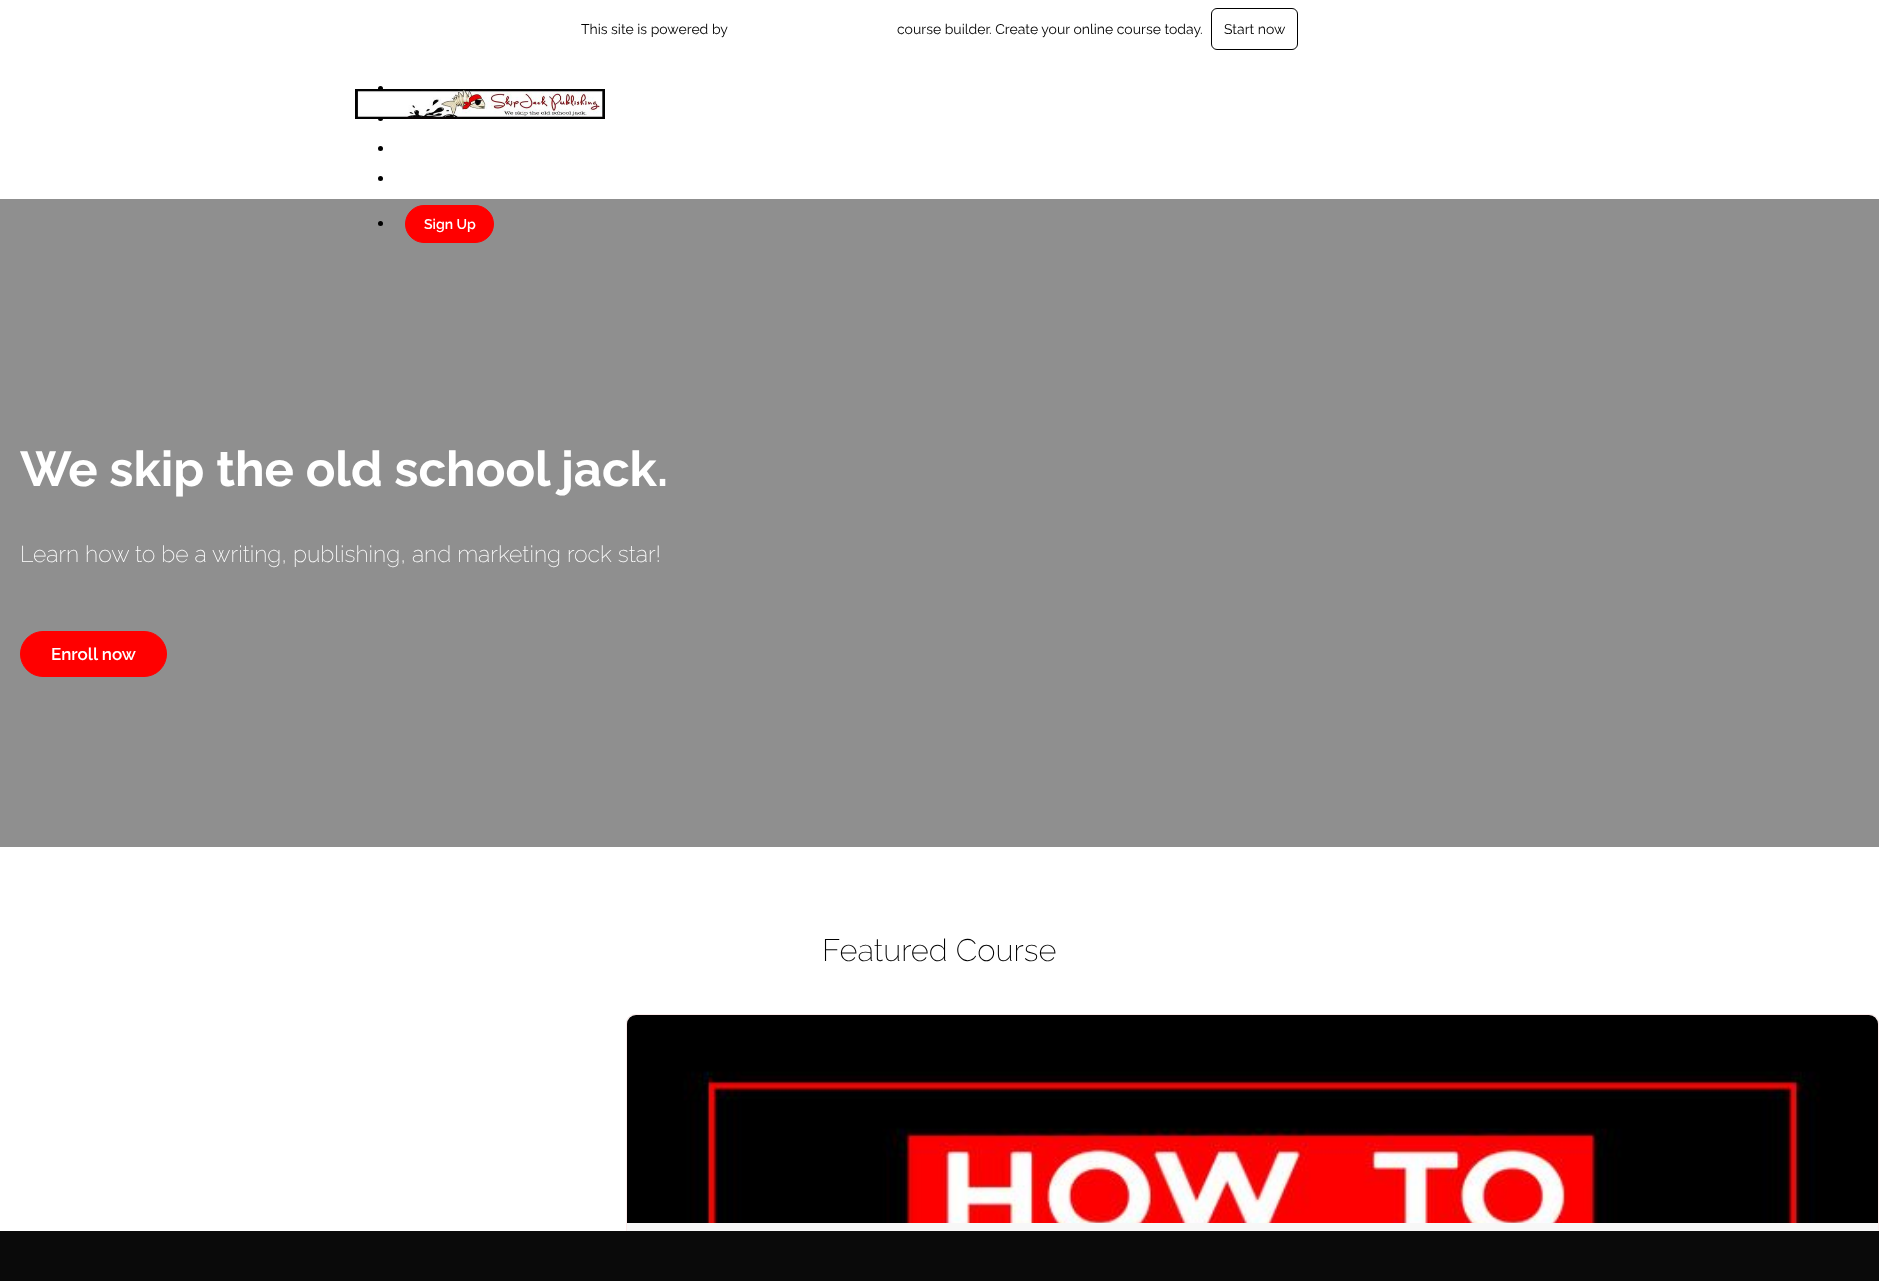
async function draw(canvas) {
	canvas.width = 1879;
	canvas.height = 1281;
	const c = canvas.getContext('2d');
	c.miterLimit = 4;
	c.fontKerning = 'normal';
	async function loadImage(src) {
		const img = new Image();
		img.src = src;
		await img.decode();
		return img;
	}

	c.fillStyle = '#fff';
	c.fillRect(0, 0, 1879, 1281);
	c.font = '14px Raleway';
	c.fillStyle = '#000';
	c.fillText('This site is powered by', 581, 34);
	c.fillText('course builder. Create your online course today.', 897, 34);
	c.beginPath();
	c.roundRect(1211.5, 8.5, 86, 41, 5.5);
	c.strokeStyle = '#000';
	c.stroke();
	c.fillText('Start now', 1224, 34);
	c.beginPath();
	c.arc(380.5, 88.5, 2.5, 0, 2 * Math.PI);
	c.fill();
	c.beginPath();
	c.arc(380.5, 118.5, 2.5, 0, 2 * Math.PI);
	c.fill();
	c.drawImage(await loadImage('img1.png'), 355, 89, 250, 30);
	c.beginPath();
	c.arc(380.5, 148.5, 2.5, 0, 2 * Math.PI);
	c.fill();
	c.beginPath();
	c.arc(380.5, 178.5, 2.5, 0, 2 * Math.PI);
	c.fill();
	c.fillStyle = '#8f8f8f';
	c.fillRect(0, 199, 1879, 648);
	c.fillStyle = '#000';
	c.beginPath();
	c.arc(380.5, 223.5, 2.5, 0, 2 * Math.PI);
	c.fill();
	c.fillStyle = '#f00';
	c.beginPath();
	c.roundRect(405.5, 205.5, 88, 37, 18.5);
	c.fill();
	c.strokeStyle = '#f00';
	c.stroke();
	c.font = '600 14px Raleway';
	c.fillStyle = '#fff';
	c.fillText('Sign Up', 424, 229);
	c.font = 'bold 49px Raleway';
	c.fillText('We skip the old school jack.', 20, 486);
	c.font = '200 23px Raleway';
	c.fillText('Learn how to be a writing, publishing, and marketing rock star!', 20, 562);
	c.fillStyle = '#f00';
	c.beginPath();
	c.roundRect(20.5, 631.5, 146, 45, 22.5);
	c.fill();
	c.stroke();
	c.font = '600 17px Raleway';
	c.fillStyle = '#fff';
	c.fillText('Enroll now', 51, 660);
	c.font = '200 31px Raleway';
	c.fillStyle = '#000';
	c.fillText('Featured Course', 822, 961);
	c.fillStyle = '#f7f7f7';
	c.beginPath();
	c.roundRect(626.5, 1014.5, 1252, 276, 8.5);
	c.fill();
	c.strokeStyle = '#fbe9e9';
	c.stroke();
	c.drawImage(await loadImage('img2.png'), 627, 1015, 1251, 208);
	c.fillStyle = '#0a0a0a';
	c.fillRect(0, 1231, 1879, 50);
}

draw(document.querySelector('canvas'));
